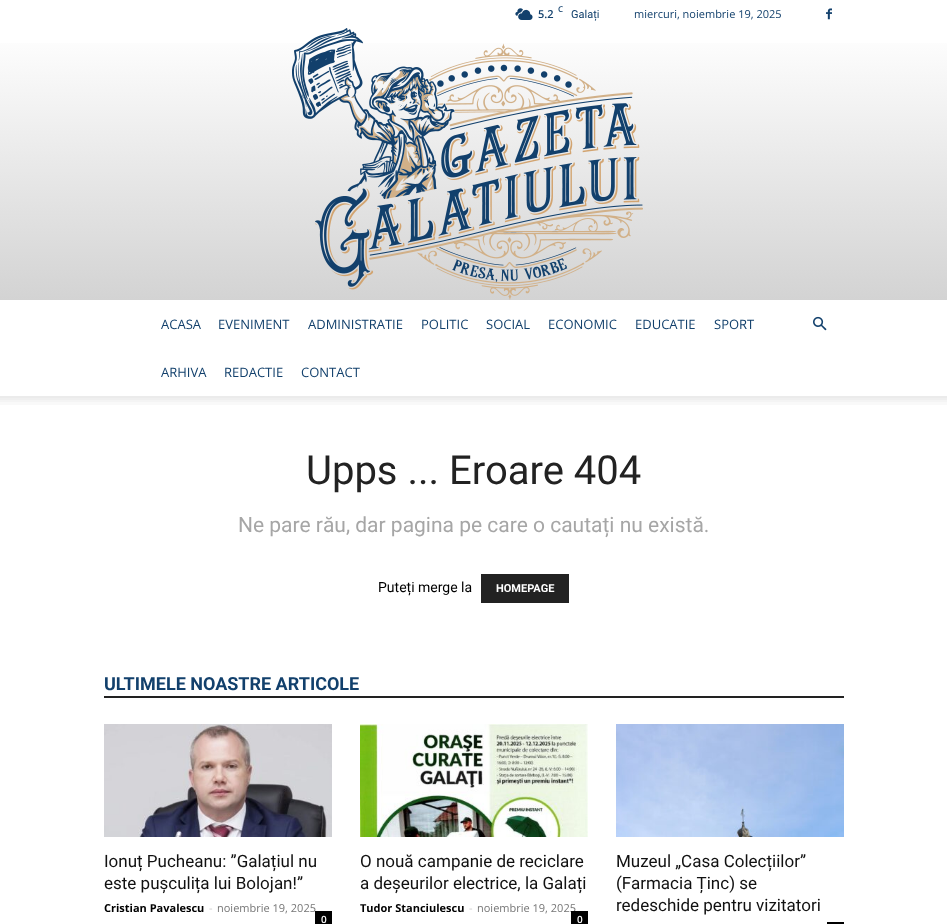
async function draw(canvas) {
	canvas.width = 947;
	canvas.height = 924;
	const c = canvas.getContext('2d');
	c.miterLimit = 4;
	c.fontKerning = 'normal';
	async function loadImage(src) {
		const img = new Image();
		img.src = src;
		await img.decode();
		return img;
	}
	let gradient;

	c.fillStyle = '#fff';
	c.fillRect(0, 0, 947, 924);
	c.drawImage(await loadImage('img1.png'), 515, 8, 18, 12);
	c.font = '600 11px Open Sans';
	c.fillStyle = '#12406c';
	c.fillText('5.2', 538, 18);
	c.font = '600 8px Open Sans';
	c.fillText('C', 558, 12);
	c.font = '11px Roboto';
	c.fillText('Galați', 571, 18);
	c.font = '11px Open Sans';
	c.fillText('miercuri, noiembrie 19, 2025', 634, 18);
	c.drawImage(await loadImage('img2.png'), 826, 8, 6, 12);
	gradient = c.createLinearGradient(474, 28, 474, 300);
	gradient.addColorStop(0, '#fff');
	gradient.addColorStop(1, '#d3d3d3');
	c.fillStyle = gradient;
	c.fillRect(0, 43, 947, 257);
	c.drawImage(await loadImage('img3.png'), 292, 28, 351, 272);
	c.font = '13px Open Sans';
	c.fillStyle = '#12406c';
	for (const [text, x, y] of [
		['ACASA', 161, 329],
		['EVENIMENT', 218, 329],
		['ADMINISTRATIE', 308, 329],
		['POLITIC', 421, 329],
		['SOCIAL', 486, 329],
		['ECONOMIC', 548, 329],
		['EDUCATIE', 635, 329],
		['SPORT', 714, 329],
		['ARHIVA', 161, 377],
		['REDACTIE', 224, 377],
		['CONTACT', 301, 377],
	]) {
		c.fillText(text, x, y);
	}
	c.drawImage(await loadImage('img4.png'), 813, 316, 14, 15);
	c.drawImage(await loadImage('img5.png'), 0, 396, 947, 9);
	c.font = '40px Roboto';
	c.fillStyle = '#222';
	c.fillText('Upps ... Eroare 404', 306, 484);
	c.font = '21px Roboto';
	c.fillStyle = '#a6a6a6';
	c.fillText('Ne pare rău, dar pagina pe care o cautați nu există.', 238, 532);
	c.font = '14px Roboto';
	c.fillStyle = '#000';
	c.fillText('Puteți merge la', 378, 592);
	c.fillStyle = '#222';
	c.fillRect(481, 574, 88, 29);
	c.font = 'bold 11px Roboto';
	c.fillStyle = '#fff';
	c.fillText('HOMEPAGE', 496, 592);
	c.fillStyle = '#222';
	c.fillRect(104, 696, 740, 2);
	c.font = 'bold 18px Roboto';
	c.fillStyle = '#12406c';
	c.fillText('ULTIMELE NOASTRE ARTICOLE', 104, 690);
	c.drawImage(await loadImage('img6.png'), 104, 724, 228, 113);
	c.font = '17px Roboto';
	c.fillStyle = '#111';
	c.fillText('Ionuț Pucheanu: ”Galațiul nu', 104, 867);
	c.fillText('este pușculița lui Bolojan!”', 104, 889);
	c.font = 'bold 11px Open Sans';
	c.fillStyle = '#000';
	c.fillText('Cristian Pavalescu', 104, 912);
	c.font = '11px Open Sans';
	c.fillStyle = '#ccc';
	c.fillText('-', 209, 912);
	c.fillStyle = '#767676';
	c.fillText('noiembrie 19, 2025', 217, 912);
	c.fillStyle = '#000';
	c.fillRect(315, 911, 17, 13);
	c.font = '600 10px Open Sans';
	c.fillStyle = '#fff';
	c.fillText('0', 321, 923);
	c.drawImage(await loadImage('img7.png'), 360, 724, 228, 113);
	c.font = '17px Roboto';
	c.fillStyle = '#111';
	c.fillText('O nouă campanie de reciclare', 360, 867);
	c.fillText('a deșeurilor electrice, la Galați', 360, 889);
	c.font = 'bold 11px Open Sans';
	c.fillStyle = '#000';
	c.fillText('Tudor Stanciulescu', 360, 912);
	c.font = '11px Open Sans';
	c.fillStyle = '#ccc';
	c.fillText('-', 469, 912);
	c.fillStyle = '#767676';
	c.fillText('noiembrie 19, 2025', 477, 912);
	c.fillStyle = '#000';
	c.fillRect(571, 911, 17, 13);
	c.font = '600 10px Open Sans';
	c.fillStyle = '#fff';
	c.fillText('0', 577, 923);
	c.drawImage(await loadImage('img8.png'), 616, 724, 228, 113);
	c.font = '17px Roboto';
	c.fillStyle = '#111';
	for (const [text, x, y] of [
		['Muzeul „Casa Colecțiilor”', 616, 867],
		['(Farmacia Ținc) se', 616, 889],
		['redeschide pentru vizitatori', 616, 911],
	]) {
		c.fillText(text, x, y);
	}
	c.fillStyle = '#000';
	c.fillRect(827, 922, 17, 2);
}

draw(document.querySelector('canvas'));
